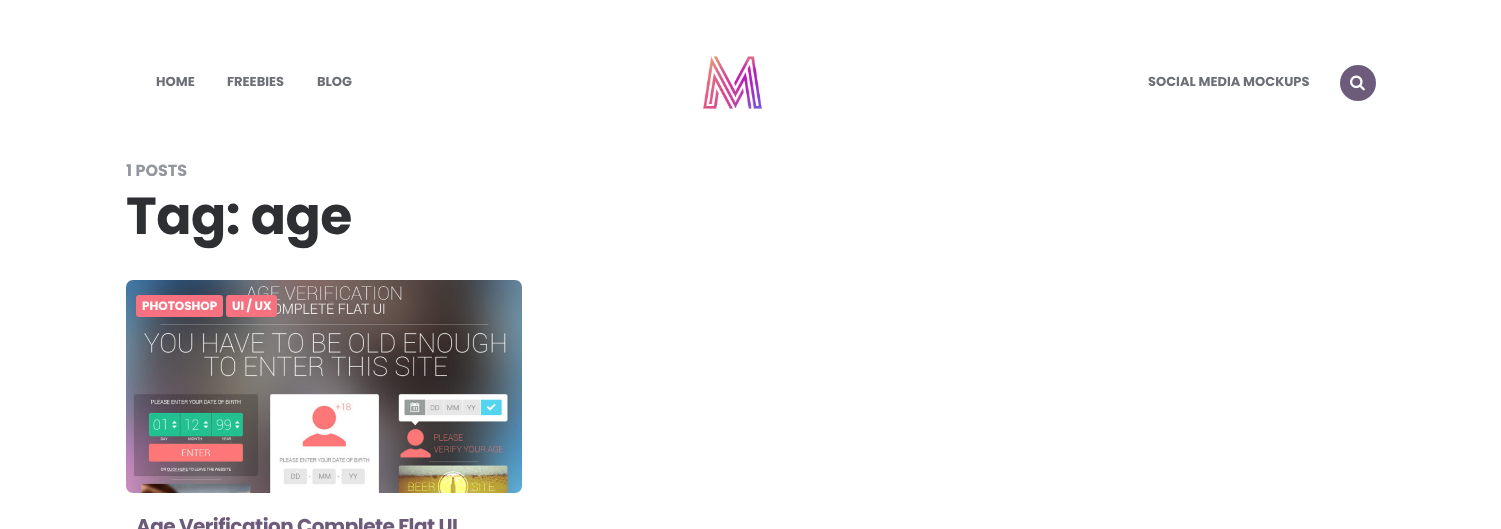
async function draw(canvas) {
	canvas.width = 1501;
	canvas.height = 529;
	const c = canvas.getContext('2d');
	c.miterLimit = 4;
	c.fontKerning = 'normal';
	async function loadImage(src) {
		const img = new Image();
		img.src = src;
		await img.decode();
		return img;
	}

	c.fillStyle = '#fff';
	c.fillRect(0, 0, 1501, 529);
	c.font = 'bold 13px Poppins';
	c.fillStyle = '#6c6f76';
	for (const [text, x, y] of [
		['HOME', 156, 86],
		['FREEBIES', 227, 86],
		['BLOG', 317, 86],
	]) {
		c.fillText(text, x, y);
	}
	c.drawImage(await loadImage('img1.png'), 703, 56, 59, 53);
	c.fillText('SOCIAL MEDIA MOCKUPS', 1148, 86);
	c.fillStyle = '#6c5b7b';
	c.beginPath();
	c.arc(1358, 83, 18, 0, 2 * Math.PI);
	c.fill();
	c.drawImage(await loadImage('img2.png'), 1350, 75, 15, 16);
	c.font = 'bold 16px Poppins';
	c.fillStyle = '#94979e';
	c.fillText('1 POSTS', 126, 176);
	c.letterSpacing = '-0.5px';
	c.font = 'bold 52px Poppins';
	c.fillStyle = '#2e2f33';
	c.fillText('Tag: age', 126, 234);
	c.drawImage(await loadImage('img3.png'), 126, 280, 396, 213);
	c.fillStyle = '#f67280';
	c.beginPath();
	c.roundRect(136, 295, 87, 22, 3);
	c.fill();
	c.letterSpacing = '0px';
	c.font = 'bold 12px Poppins';
	c.fillStyle = '#fff';
	c.fillText('PHOTOSHOP', 142, 310);
	c.fillStyle = '#f67280';
	c.beginPath();
	c.roundRect(226, 295, 51, 22, 3);
	c.fill();
	c.fillStyle = '#fff';
	c.fillText('UI / UX', 232, 310);
	c.letterSpacing = '-0.5px';
	c.font = 'bold 20px Poppins';
	c.fillStyle = '#6c5b7b';
	c.fillText('Age Verification Complete Flat UI', 136, 533);
}

draw(document.querySelector('canvas'));
